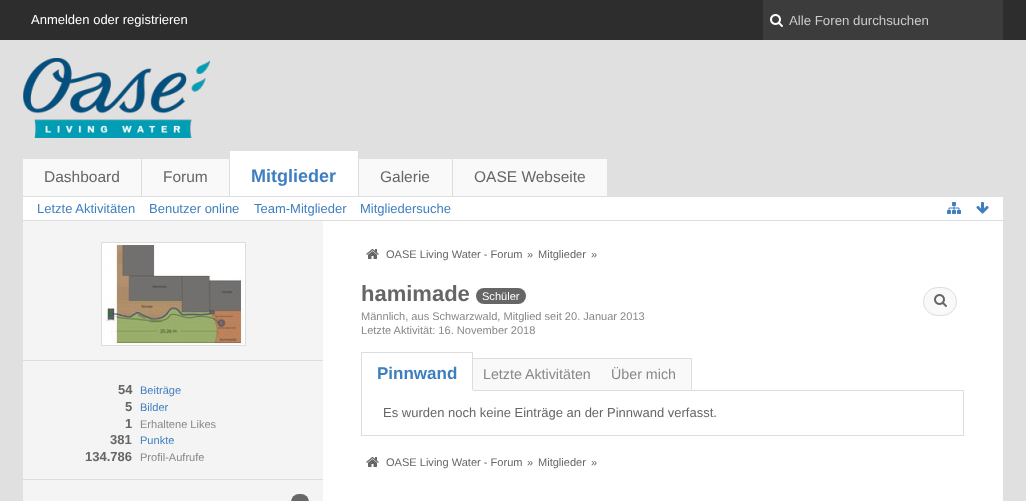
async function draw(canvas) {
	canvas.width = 1026;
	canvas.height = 501;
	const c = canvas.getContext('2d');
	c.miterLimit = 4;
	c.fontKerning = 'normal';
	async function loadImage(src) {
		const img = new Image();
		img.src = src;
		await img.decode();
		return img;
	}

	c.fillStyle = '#e0e0e0';
	c.fillRect(0, 0, 1026, 501);
	c.fillStyle = '#2d2d2d';
	c.fillRect(0, 0, 1026, 40);
	c.font = '13px Liberation Sans';
	c.fillStyle = '#fff';
	c.fillText('Anmelden oder registrieren', 31, 24);
	c.fillStyle = '#3c3c3c';
	c.fillRect(763, 0, 240, 40);
	c.drawImage(await loadImage('img1.png'), 770, 14, 13, 13);
	c.font = '13.25px Liberation Sans';
	c.fillStyle = '#ccc';
	c.fillText('Alle Foren durchsuchen', 789, 25);
	c.drawImage(await loadImage('img2.png'), 23, 58, 187, 80);
	c.fillStyle = '#f9f9f9';
	c.fillRect(23, 159, 584, 37);
	c.fillStyle = '#ddd';
	c.fillRect(141, 158, 1, 38);
	c.font = '15.5px Liberation Sans';
	c.fillStyle = '#666';
	c.fillText('Dashboard', 44, 182);
	c.fillStyle = '#ddd';
	c.fillRect(229, 158, 1, 38);
	c.fillStyle = '#666';
	c.fillText('Forum', 163, 182);
	c.fillStyle = '#fff';
	c.fillRect(230, 151, 128, 45);
	c.fillStyle = '#ddd';
	c.fillRect(358, 151, 1, 45);
	c.font = 'bold 18px Liberation Sans';
	c.fillStyle = '#3f7fbf';
	c.fillText('Mitglieder', 251, 182);
	c.fillStyle = '#ddd';
	c.fillRect(452, 158, 1, 38);
	c.font = '15.5px Liberation Sans';
	c.fillStyle = '#666';
	c.fillText('Galerie', 380, 182);
	c.fillText('OASE Webseite', 474, 182);
	for (const [x, y, w, h, color] of [
		[23, 197, 980, 23, '#fff'],
		[23, 196, 980, 1, '#ddd'],
		[23, 220, 980, 1, '#ddd'],
	]) {
		c.fillStyle = color;
		c.fillRect(x, y, w, h);
	}
	c.font = '13px Liberation Sans';
	c.fillStyle = '#3f7fbf';
	for (const [text, x, y] of [
		['Letzte Aktivitäten', 37, 213],
		['Benutzer online', 149, 213],
		['Team-Mitglieder', 254, 213],
		['Mitgliedersuche', 360, 213],
	]) {
		c.fillText(text, x, y);
	}
	c.drawImage(await loadImage('img3.png'), 947, 202, 14, 12);
	c.drawImage(await loadImage('img4.png'), 976, 202, 13, 12);
	for (const [x, y, w, h, color] of [
		[323, 221, 680, 280, '#fff'],
		[23, 221, 300, 280, '#f4f4f4'],
		[23, 360, 300, 1, '#ddd'],
	]) {
		c.fillStyle = color;
		c.fillRect(x, y, w, h);
	}
	c.fillStyle = '#fff';
	c.beginPath();
	c.rect(101.5, 242.5, 144, 103);
	c.fill();
	c.strokeStyle = '#ddd';
	c.stroke();
	c.drawImage(await loadImage('img5.png'), 103, 244, 141, 100);
	c.fillStyle = '#ddd';
	c.fillRect(23, 479, 300, 1);
	c.font = 'bold 13px Liberation Sans';
	c.fillStyle = '#666';
	c.fillText('54', 118, 394);
	c.font = '11.05px Liberation Sans';
	c.fillStyle = '#3f7fbf';
	c.fillText('Beiträge', 140, 394);
	c.font = 'bold 13px Liberation Sans';
	c.fillStyle = '#666';
	c.fillText('5', 125, 411);
	c.font = '11.05px Liberation Sans';
	c.fillStyle = '#3f7fbf';
	c.fillText('Bilder', 140, 411);
	c.font = 'bold 13px Liberation Sans';
	c.fillStyle = '#666';
	c.fillText('1', 125, 428);
	c.font = '11.05px Liberation Sans';
	c.fillStyle = '#888';
	c.fillText('Erhaltene Likes', 140, 428);
	c.font = 'bold 13px Liberation Sans';
	c.fillStyle = '#666';
	c.fillText('381', 110, 444);
	c.font = '11.05px Liberation Sans';
	c.fillStyle = '#3f7fbf';
	c.fillText('Punkte', 140, 444);
	c.font = 'bold 13px Liberation Sans';
	c.fillStyle = '#666';
	c.fillText('134.786', 85, 461);
	c.font = '11.05px Liberation Sans';
	c.fillStyle = '#888';
	c.fillText('Profil-Aufrufe', 140, 461);
	c.fillStyle = '#666';
	c.beginPath();
	c.roundRect(291, 494, 18, 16, 8.5);
	c.fill();
	c.drawImage(await loadImage('img6.png'), 366, 249, 13, 10);
	for (const [text, x, y] of [
		['OASE Living Water - Forum', 386, 258],
		['»', 527, 258],
		['Mitglieder', 538, 258],
		['»', 591, 258],
	]) {
		c.fillText(text, x, y);
	}
	c.font = 'bold 22px Liberation Sans';
	c.fillText('hamimade', 361, 301);
	c.beginPath();
	c.roundRect(476, 288, 50, 16, 8);
	c.fill();
	c.font = '11.05px Liberation Sans';
	c.fillStyle = '#fff';
	c.fillText('Schüler', 482, 300);
	c.fillStyle = '#f9f9f9';
	c.beginPath();
	c.roundRect(923.5, 287.5, 33, 28, 14);
	c.fill();
	c.stroke();
	c.drawImage(await loadImage('img7.png'), 934, 294, 13, 13);
	c.fillStyle = '#888';
	c.fillText('Männlich, aus Schwarzwald, Mitglied seit 20. Januar 2013', 361, 320);
	c.fillText('Letzte Aktivität: 16. November 2018', 361, 334);
	for (const [x, y, w, h, color] of [
		[473, 359, 218, 31, '#f9f9f9'],
		[473, 358, 219, 1, '#ddd'],
		[691, 358, 1, 33, '#ddd'],
		[361, 352, 112, 1, '#ddd'],
	]) {
		c.fillStyle = color;
		c.fillRect(x, y, w, h);
	}
	c.strokeRect(361.5, 390.5, 602, 45);
	for (const [x, y, w, h, color] of [
		[472, 352, 1, 39, '#ddd'],
		[361, 390, 112, 1, '#fff'],
		[361, 352, 1, 39, '#ddd'],
	]) {
		c.fillStyle = color;
		c.fillRect(x, y, w, h);
	}
	c.font = 'bold 17px Liberation Sans';
	c.fillStyle = '#3f7fbf';
	c.fillText('Pinnwand', 377, 379);
	c.font = '14.25px Liberation Sans';
	c.fillStyle = '#888';
	c.fillText('Letzte Aktivitäten', 483, 379);
	c.fillText('Über mich', 611, 379);
	c.font = '13px Liberation Sans';
	c.fillStyle = '#666';
	c.fillText('Es wurden noch keine Einträge an der Pinnwand verfasst.', 383, 417);
	c.drawImage(await loadImage('img6.png'), 366, 457, 13, 10);
	c.font = '11.05px Liberation Sans';
	for (const [text, x, y] of [
		['OASE Living Water - Forum', 386, 466],
		['»', 527, 466],
		['Mitglieder', 538, 466],
		['»', 591, 466],
	]) {
		c.fillText(text, x, y);
	}
}

draw(document.querySelector('canvas'));
